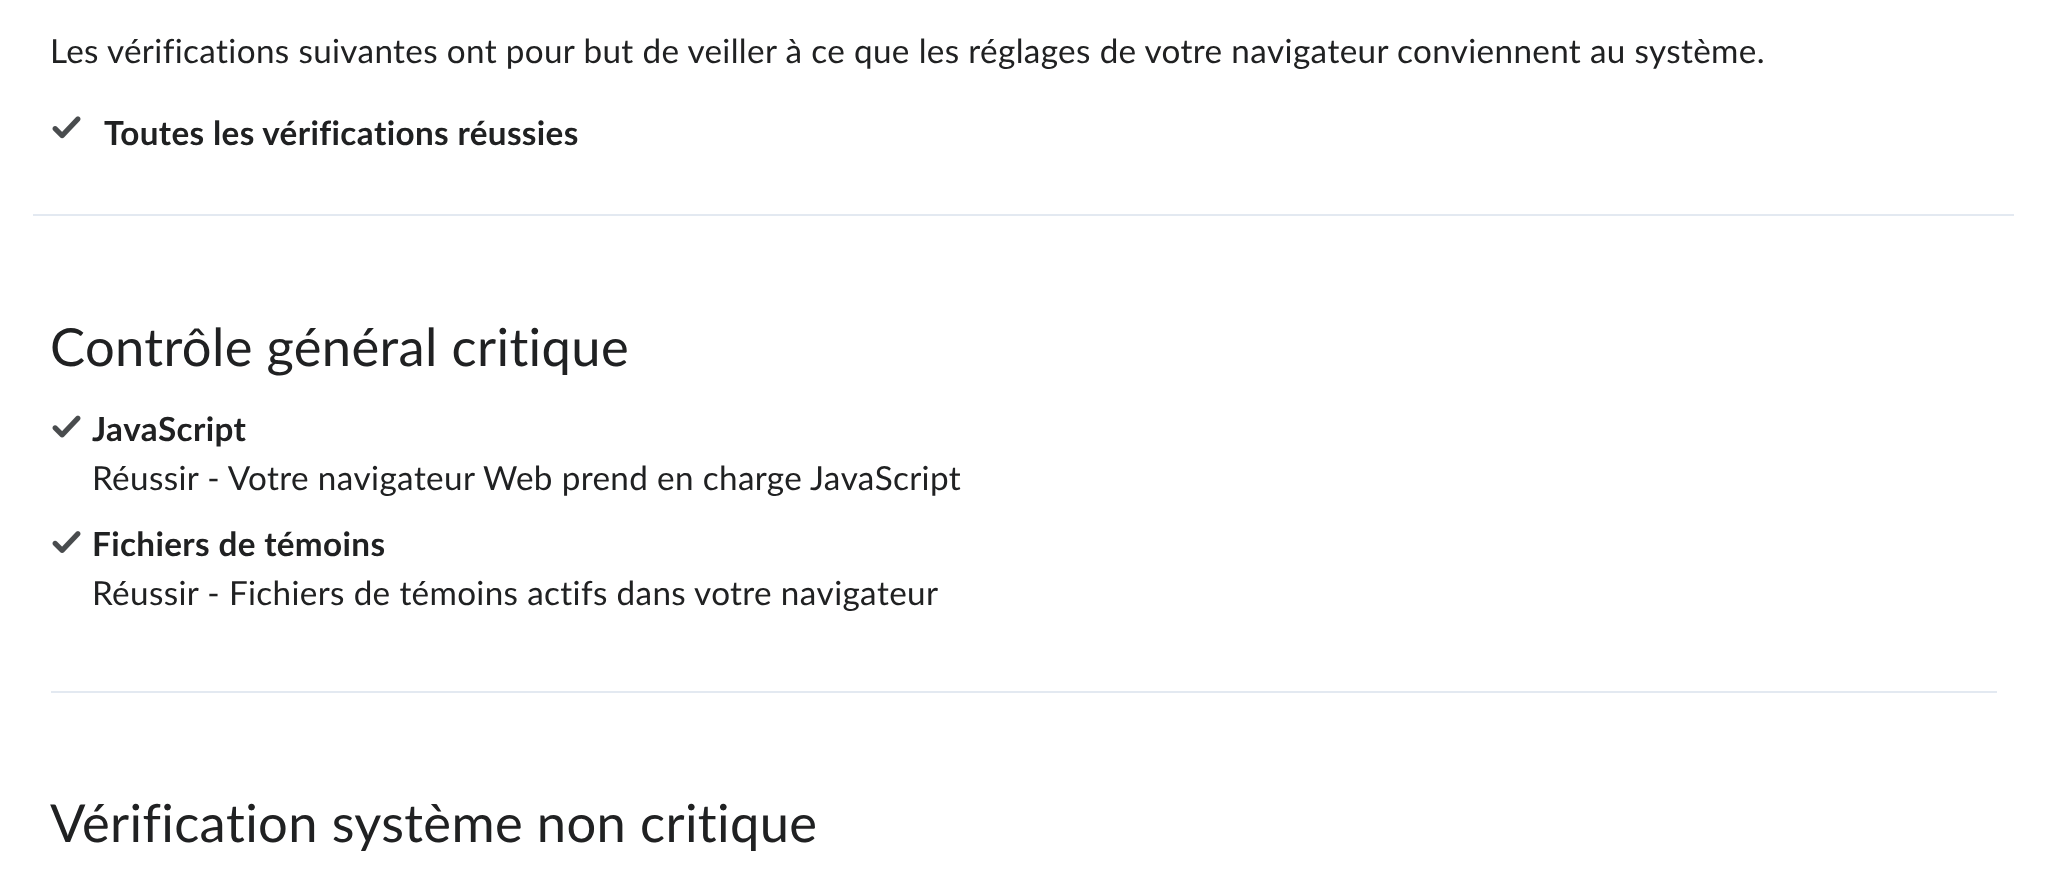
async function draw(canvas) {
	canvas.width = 2046;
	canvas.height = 873;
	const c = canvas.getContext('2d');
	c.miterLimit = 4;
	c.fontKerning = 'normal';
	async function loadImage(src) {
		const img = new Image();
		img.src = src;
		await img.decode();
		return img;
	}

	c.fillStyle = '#fff';
	c.fillRect(0, 0, 2046, 873);
	c.letterSpacing = '0.35px';
	c.font = '33.25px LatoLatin';
	c.fillStyle = '#202122';
	c.fillText('Les vérifications suivantes ont pour but de veiller à ce que les réglages de votre navigateur conviennent au système.', 50, 63);
	c.drawImage(await loadImage('img1.png'), 52, 116, 29, 23);
	c.font = 'bold 33.25px LatoLatin';
	c.fillText('Toutes les vérifications réussies', 104, 145);
	c.fillStyle = '#e3e9f1';
	c.fillRect(33, 214, 1981, 2);
	c.font = '52.5px LatoLatin';
	c.fillStyle = '#202122';
	c.fillText('Contrôle général critique', 50, 366);
	c.drawImage(await loadImage('img2.png'), 52, 415, 29, 23);
	c.font = 'bold 33.25px LatoLatin';
	c.fillText('JavaScript', 92, 441);
	c.font = '33.25px LatoLatin';
	c.fillText('Réussir - Votre navigateur Web prend en charge JavaScript', 92, 490);
	c.drawImage(await loadImage('img3.png'), 52, 531, 29, 22);
	c.font = 'bold 33.25px LatoLatin';
	c.fillText('Fichiers de témoins', 92, 556);
	c.font = '33.25px LatoLatin';
	c.fillText('Réussir - Fichiers de témoins actifs dans votre navigateur', 92, 605);
	c.fillStyle = '#e3e9f1';
	c.fillRect(51, 691, 1946, 2);
	c.font = '52.5px LatoLatin';
	c.fillStyle = '#202122';
	c.fillText('Vérification système non critique', 50, 842);
}

draw(document.querySelector('canvas'));
